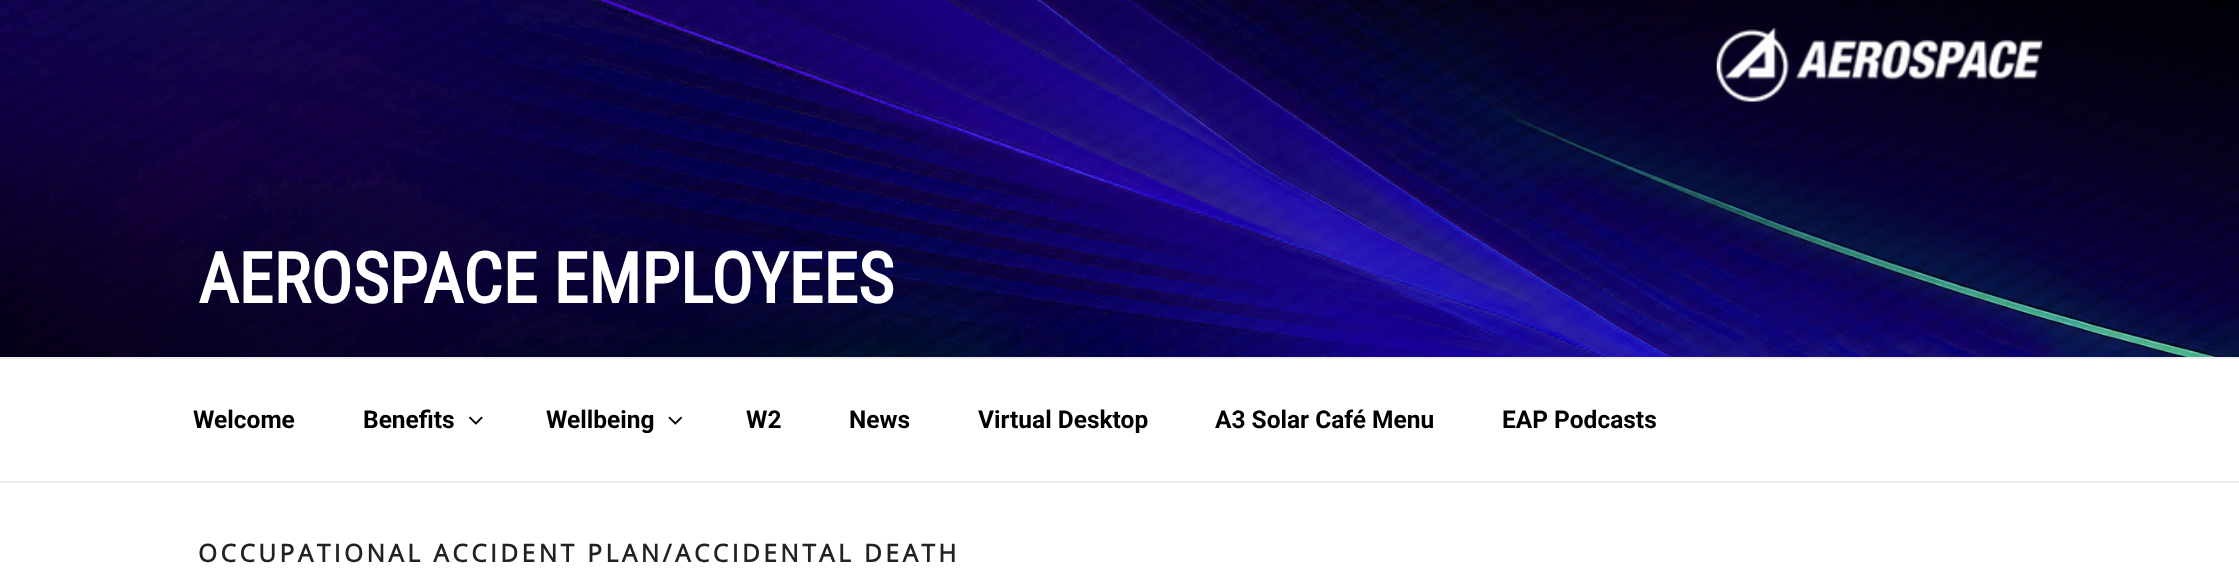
async function draw(canvas) {
	canvas.width = 2239;
	canvas.height = 570;
	const c = canvas.getContext('2d');
	c.miterLimit = 4;
	c.fontKerning = 'normal';
	async function loadImage(src) {
		const img = new Image();
		img.src = src;
		await img.decode();
		return img;
	}

	c.fillStyle = '#fff';
	c.fillRect(0, 0, 2239, 570);
	c.drawImage(await loadImage('img1.png'), 0, 0, 2239, 357);
	c.drawImage(await loadImage('img2.png'), 1716, 28, 327, 74);
	c.font = 'bold 70px Roboto Condensed';
	c.fillText('AEROSPACE EMPLOYEES', 198, 303);
	c.fillStyle = '#eee';
	c.fillRect(0, 357, 2239, 2);
	c.fillRect(0, 481, 2239, 2);
	c.font = 'bold 24.5px Roboto';
	c.fillStyle = '#000';
	c.fillText('Welcome', 193, 428);
	c.fillText('Benefits', 363, 428);
	c.drawImage(await loadImage('img3.png'), 469, 416, 14, 9);
	c.fillText('Wellbeing', 546, 428);
	c.drawImage(await loadImage('img4.png'), 668, 416, 15, 9);
	for (const [text, x, y] of [
		['W2', 746, 428],
		['News', 849, 428],
		['Virtual Desktop', 978, 428],
		['A3 Solar Café Menu', 1215, 428],
		['EAP Podcasts', 1502, 428],
	]) {
		c.fillText(text, x, y);
	}
	c.letterSpacing = '3.45px';
	c.font = 'bold 24.5px Open Sans';
	c.fillStyle = '#222';
	c.fillText('OCCUPATIONAL ACCIDENT PLAN/ACCIDENTAL DEATH', 198, 562);
}

draw(document.querySelector('canvas'));
